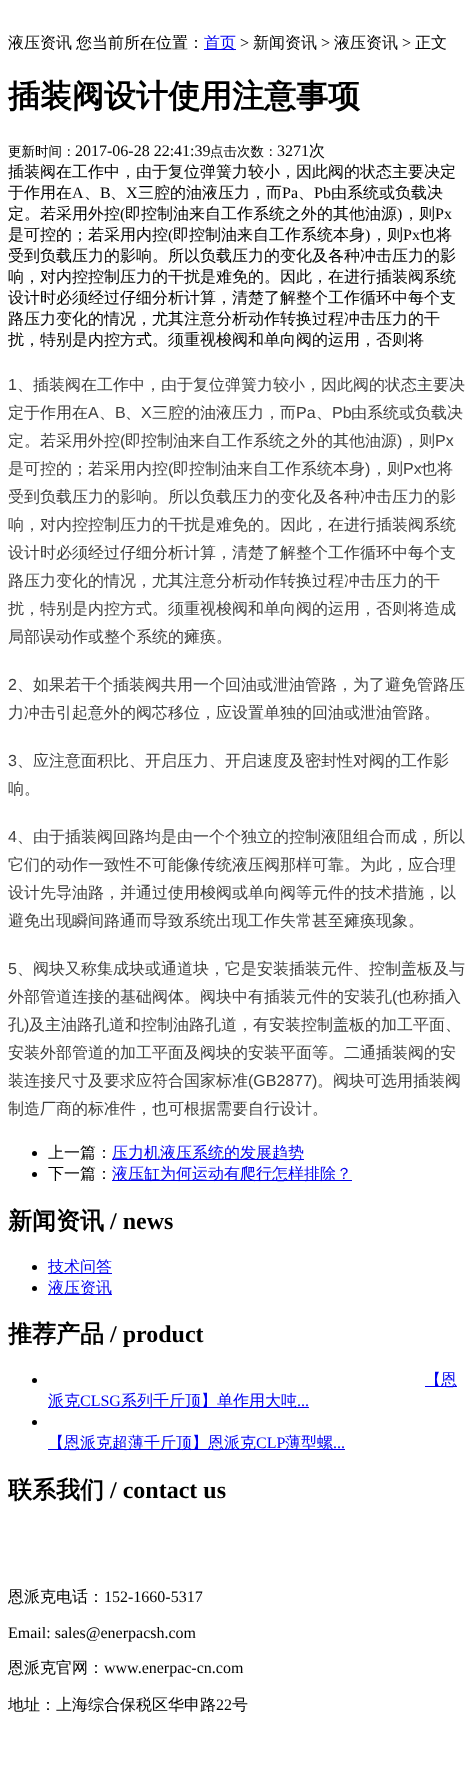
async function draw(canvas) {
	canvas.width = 474;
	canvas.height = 1782;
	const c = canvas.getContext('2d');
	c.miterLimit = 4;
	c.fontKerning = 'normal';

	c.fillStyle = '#fff';
	c.fillRect(0, 0, 474, 1782);
	c.font = '500 16px WenQuanYi Zen Hei';
	c.fillStyle = '#000';
	c.fillText('液压资讯', 8, 48);
	c.fillText('您当前所在位置：', 76, 48);
	c.fillStyle = '#00e';
	c.fillRect(204, 49, 32, 1);
	c.fillText('首页', 204, 48);
	c.font = '16px Liberation Serif';
	c.fillStyle = '#000';
	c.fillText('>', 240, 48);
	c.font = '500 16px WenQuanYi Zen Hei';
	c.fillText('新闻资讯', 253, 48);
	c.font = '16px Liberation Serif';
	c.fillText('>', 321, 48);
	c.font = '500 16px WenQuanYi Zen Hei';
	c.fillText('液压资讯', 334, 48);
	c.font = '16px Liberation Serif';
	c.fillText('>', 402, 48);
	c.font = '500 16px WenQuanYi Zen Hei';
	c.fillText('正文', 415, 48);
	c.font = 'bold 32px WenQuanYi Zen Hei';
	c.fillText('插装阀设计使用注意事项', 8, 107);
	c.font = '500 13.5px WenQuanYi Zen Hei';
	c.fillText('更新时间：', 8, 156);
	c.font = '16px Liberation Serif';
	c.fillText('2017-06-28 22:41:39', 75, 156);
	c.font = '500 13.5px WenQuanYi Zen Hei';
	c.fillText('点击次数：', 210, 156);
	c.font = '16px Liberation Serif';
	c.fillText('3271', 277, 156);
	c.font = '500 16px WenQuanYi Zen Hei';
	for (const [text, x, y] of [
		['次', 309, 156],
		['插装阀在工作中，由于复位弹簧力较小，因此阀的状态主要决定', 8, 177],
		['于作用在', 8, 198],
	]) {
		c.fillText(text, x, y);
	}
	c.font = '16px Liberation Serif';
	c.fillText('A', 72, 198);
	c.font = '500 16px WenQuanYi Zen Hei';
	c.fillText('、', 84, 198);
	c.font = '16px Liberation Serif';
	c.fillText('B', 100, 198);
	c.font = '500 16px WenQuanYi Zen Hei';
	c.fillText('、', 110, 198);
	c.font = '16px Liberation Serif';
	c.fillText('X', 126, 198);
	c.font = '500 16px WenQuanYi Zen Hei';
	c.fillText('三腔的油液压力，而', 138, 198);
	c.font = '16px Liberation Serif';
	c.fillText('Pa', 282, 198);
	c.font = '500 16px WenQuanYi Zen Hei';
	c.fillText('、', 298, 198);
	c.font = '16px Liberation Serif';
	c.fillText('Pb', 314, 198);
	c.font = '500 16px WenQuanYi Zen Hei';
	c.fillText('由系统或负载决', 331, 198);
	c.fillText('定。若采用外控', 8, 219);
	c.font = '16px Liberation Serif';
	c.fillText('(', 120, 219);
	c.font = '500 16px WenQuanYi Zen Hei';
	c.fillText('即控制油来自工作系统之外的其他油源', 125, 219);
	c.font = '16px Liberation Serif';
	c.fillText(')', 397, 219);
	c.font = '500 16px WenQuanYi Zen Hei';
	c.fillText('，则', 403, 219);
	c.font = '16px Liberation Serif';
	c.fillText('Px', 435, 219);
	c.font = '500 16px WenQuanYi Zen Hei';
	c.fillText('是可控的；若采用内控', 8, 240);
	c.font = '16px Liberation Serif';
	c.fillText('(', 168, 240);
	c.font = '500 16px WenQuanYi Zen Hei';
	c.fillText('即控制油来自工作系统本身', 173, 240);
	c.font = '16px Liberation Serif';
	c.fillText(')', 365, 240);
	c.font = '500 16px WenQuanYi Zen Hei';
	c.fillText('，则', 371, 240);
	c.font = '16px Liberation Serif';
	c.fillText('Px', 403, 240);
	c.font = '500 16px WenQuanYi Zen Hei';
	for (const [text, x, y] of [
		['也将', 420, 240],
		['受到负载压力的影响。所以负载压力的变化及各种冲击压力的影', 8, 261],
		['响，对内控控制压力的干扰是难免的。因此，在进行插装阀系统', 8, 282],
		['设计时必须经过仔细分析计算，清楚了解整个工作循环中每个支', 8, 303],
		['路压力变化的情况，尤其注意分析动作转换过程冲击压力的干', 8, 324],
		['扰，特别是内控方式。须重视梭阀和单向阀的运用，否则将', 8, 345],
	]) {
		c.fillText(text, x, y);
	}
	c.font = '16px Liberation Sans';
	c.fillStyle = '#3e3e3e';
	c.fillText('1', 8, 390);
	c.font = '500 16px WenQuanYi Zen Hei';
	c.fillText('、插装阀在工作中，由于复位弹簧力较小，因此阀的状态主要决', 17, 390);
	c.fillText('定于作用在', 8, 418);
	c.font = '16px Liberation Sans';
	c.fillText('A', 88, 418);
	c.font = '500 16px WenQuanYi Zen Hei';
	c.fillText('、', 99, 418);
	c.font = '16px Liberation Sans';
	c.fillText('B', 115, 418);
	c.font = '500 16px WenQuanYi Zen Hei';
	c.fillText('、', 125, 418);
	c.font = '16px Liberation Sans';
	c.fillText('X', 141, 418);
	c.font = '500 16px WenQuanYi Zen Hei';
	c.fillText('三腔的油液压力，而', 152, 418);
	c.font = '16px Liberation Sans';
	c.fillText('Pa', 296, 418);
	c.font = '500 16px WenQuanYi Zen Hei';
	c.fillText('、', 316, 418);
	c.font = '16px Liberation Sans';
	c.fillText('Pb', 332, 418);
	c.font = '500 16px WenQuanYi Zen Hei';
	c.fillText('由系统或负载决', 351, 418);
	c.fillText('定。若采用外控', 8, 446);
	c.font = '16px Liberation Sans';
	c.fillText('(', 120, 446);
	c.font = '500 16px WenQuanYi Zen Hei';
	c.fillText('即控制油来自工作系统之外的其他油源', 125, 446);
	c.font = '16px Liberation Sans';
	c.fillText(')', 397, 446);
	c.font = '500 16px WenQuanYi Zen Hei';
	c.fillText('，则', 403, 446);
	c.font = '16px Liberation Sans';
	c.fillText('Px', 435, 446);
	c.font = '500 16px WenQuanYi Zen Hei';
	c.fillText('是可控的；若采用内控', 8, 474);
	c.font = '16px Liberation Sans';
	c.fillText('(', 168, 474);
	c.font = '500 16px WenQuanYi Zen Hei';
	c.fillText('即控制油来自工作系统本身', 173, 474);
	c.font = '16px Liberation Sans';
	c.fillText(')', 365, 474);
	c.font = '500 16px WenQuanYi Zen Hei';
	c.fillText('，则', 371, 474);
	c.font = '16px Liberation Sans';
	c.fillText('Px', 403, 474);
	c.font = '500 16px WenQuanYi Zen Hei';
	for (const [text, x, y] of [
		['也将', 421, 474],
		['受到负载压力的影响。所以负载压力的变化及各种冲击压力的影', 8, 502],
		['响，对内控控制压力的干扰是难免的。因此，在进行插装阀系统', 8, 530],
		['设计时必须经过仔细分析计算，清楚了解整个工作循环中每个支', 8, 558],
		['路压力变化的情况，尤其注意分析动作转换过程冲击压力的干', 8, 586],
		['扰，特别是内控方式。须重视梭阀和单向阀的运用，否则将造成', 8, 614],
		['局部误动作或整个系统的瘫痪。', 8, 642],
	]) {
		c.fillText(text, x, y);
	}
	c.font = '16px Liberation Sans';
	c.fillText('2', 8, 690);
	c.font = '500 16px WenQuanYi Zen Hei';
	c.fillText('、如果若干个插装阀共用一个回油或泄油管路，为了避免管路压', 17, 690);
	c.fillText('力冲击引起意外的阀芯移位，应设置单独的回油或泄油管路。', 8, 718);
	c.font = '16px Liberation Sans';
	c.fillText('3', 8, 766);
	c.font = '500 16px WenQuanYi Zen Hei';
	c.fillText('、应注意面积比、开启压力、开启速度及密封性对阀的工作影', 17, 766);
	c.fillText('响。', 8, 794);
	c.font = '16px Liberation Sans';
	c.fillText('4', 8, 842);
	c.font = '500 16px WenQuanYi Zen Hei';
	for (const [text, x, y] of [
		['、由于插装阀回路均是由一个个独立的控制液阻组合而成，所以', 17, 842],
		['它们的动作一致性不可能像传统液压阀那样可靠。为此，应合理', 8, 870],
		['设计先导油路，并通过使用梭阀或单向阀等元件的技术措施，以', 8, 898],
		['避免出现瞬间路通而导致系统出现工作失常甚至瘫痪现象。', 8, 926],
	]) {
		c.fillText(text, x, y);
	}
	c.font = '16px Liberation Sans';
	c.fillText('5', 8, 974);
	c.font = '500 16px WenQuanYi Zen Hei';
	c.fillText('、阀块又称集成块或通道块，它是安装插装元件、控制盖板及与', 17, 974);
	c.fillText('外部管道连接的基础阀体。阀块中有插装元件的安装孔', 8, 1002);
	c.font = '16px Liberation Sans';
	c.fillText('(', 392, 1002);
	c.font = '500 16px WenQuanYi Zen Hei';
	c.fillText('也称插入', 397, 1002);
	c.fillText('孔', 8, 1030);
	c.font = '16px Liberation Sans';
	c.fillText(')', 24, 1030);
	c.font = '500 16px WenQuanYi Zen Hei';
	for (const [text, x, y] of [
		['及主油路孔道和控制油路孔道，有安装控制盖板的加工平面、', 29, 1030],
		['安装外部管道的加工平面及阀块的安装平面等。二通插装阀的安', 8, 1058],
		['装连接尺寸及要求应符合国家标准', 8, 1086],
	]) {
		c.fillText(text, x, y);
	}
	c.font = '16px Liberation Sans';
	c.fillText('(GB2877)', 248, 1086);
	c.font = '500 16px WenQuanYi Zen Hei';
	c.fillText('。阀块可选用插装阀', 317, 1086);
	c.fillText('制造厂商的标准件，也可根据需要自行设计。', 8, 1114);
	c.fillStyle = '#000';
	c.beginPath();
	c.arc(34.5, 1153.5, 2.5, 0, 2 * Math.PI);
	c.fill();
	c.fillText('上一篇：', 48, 1158);
	c.fillStyle = '#00e';
	c.fillRect(112, 1159, 192, 1);
	c.fillText('压力机液压系统的发展趋势', 112, 1158);
	c.fillStyle = '#000';
	c.beginPath();
	c.arc(34.5, 1174.5, 2.5, 0, 2 * Math.PI);
	c.fill();
	c.fillText('下一篇：', 48, 1179);
	c.fillStyle = '#00e';
	c.fillRect(112, 1180, 240, 1);
	c.fillText('液压缸为何运动有爬行怎样排除？', 112, 1179);
	c.font = 'bold 24px WenQuanYi Zen Hei';
	c.fillStyle = '#000';
	c.fillText('新闻资讯', 8, 1229);
	c.font = 'bold 24px Liberation Serif';
	c.fillText('/ news', 110, 1229);
	c.beginPath();
	c.arc(34.5, 1267.5, 2.5, 0, 2 * Math.PI);
	c.fill();
	c.fillStyle = '#00e';
	c.fillRect(48, 1273, 64, 1);
	c.font = '500 16px WenQuanYi Zen Hei';
	c.fillText('技术问答', 48, 1272);
	c.fillStyle = '#000';
	c.beginPath();
	c.arc(34.5, 1288.5, 2.5, 0, 2 * Math.PI);
	c.fill();
	c.fillStyle = '#00e';
	c.fillRect(48, 1294, 64, 1);
	c.fillText('液压资讯', 48, 1293);
	c.font = 'bold 24px WenQuanYi Zen Hei';
	c.fillStyle = '#000';
	c.fillText('推荐产品', 8, 1342);
	c.font = 'bold 24px Liberation Serif';
	c.fillText('/ product', 110, 1342);
	c.beginPath();
	c.arc(34.5, 1380.5, 2.5, 0, 2 * Math.PI);
	c.fill();
	c.fillStyle = '#00e';
	c.fillRect(425, 1386, 32, 1);
	c.font = '500 16px WenQuanYi Zen Hei';
	c.fillText('【恩', 425, 1385);
	c.fillRect(48, 1407, 261, 1);
	c.fillText('派克', 48, 1406);
	c.font = '16px Liberation Serif';
	c.fillText('CLSG', 80, 1406);
	c.font = '500 16px WenQuanYi Zen Hei';
	c.fillText('系列千斤顶】单作用大吨', 121, 1406);
	c.font = '16px Liberation Serif';
	c.fillText('...', 297, 1406);
	c.fillStyle = '#000';
	c.beginPath();
	c.arc(34.5, 1422.5, 2.5, 0, 2 * Math.PI);
	c.fill();
	c.fillStyle = '#00e';
	c.fillRect(48, 1449, 297, 1);
	c.font = '500 16px WenQuanYi Zen Hei';
	c.fillText('【恩派克超薄千斤顶】恩派克', 48, 1448);
	c.font = '16px Liberation Serif';
	c.fillText('CLP', 256, 1448);
	c.font = '500 16px WenQuanYi Zen Hei';
	c.fillText('薄型螺', 285, 1448);
	c.font = '16px Liberation Serif';
	c.fillText('...', 333, 1448);
	c.font = 'bold 24px WenQuanYi Zen Hei';
	c.fillStyle = '#000';
	c.fillText('联系我们', 8, 1498);
	c.font = 'bold 24px Liberation Serif';
	c.fillText('/ contact us', 110, 1498);
	c.font = '500 16px WenQuanYi Zen Hei';
	c.fillText('恩派克电话：', 8, 1602);
	c.font = '16px Liberation Serif';
	c.fillText('152-1660-5317', 104, 1602);
	c.fillText('Email: sales@enerpacsh.com', 8, 1638);
	c.font = '500 16px WenQuanYi Zen Hei';
	c.fillText('恩派克官网：', 8, 1673);
	c.font = '16px Liberation Serif';
	c.fillText('www.enerpac-cn.com', 104, 1673);
	c.font = '500 16px WenQuanYi Zen Hei';
	c.fillText('地址：上海综合保税区华申路', 8, 1710);
	c.font = '16px Liberation Serif';
	c.fillText('22', 216, 1710);
	c.font = '500 16px WenQuanYi Zen Hei';
	c.fillText('号', 232, 1710);
}

draw(document.querySelector('canvas'));
